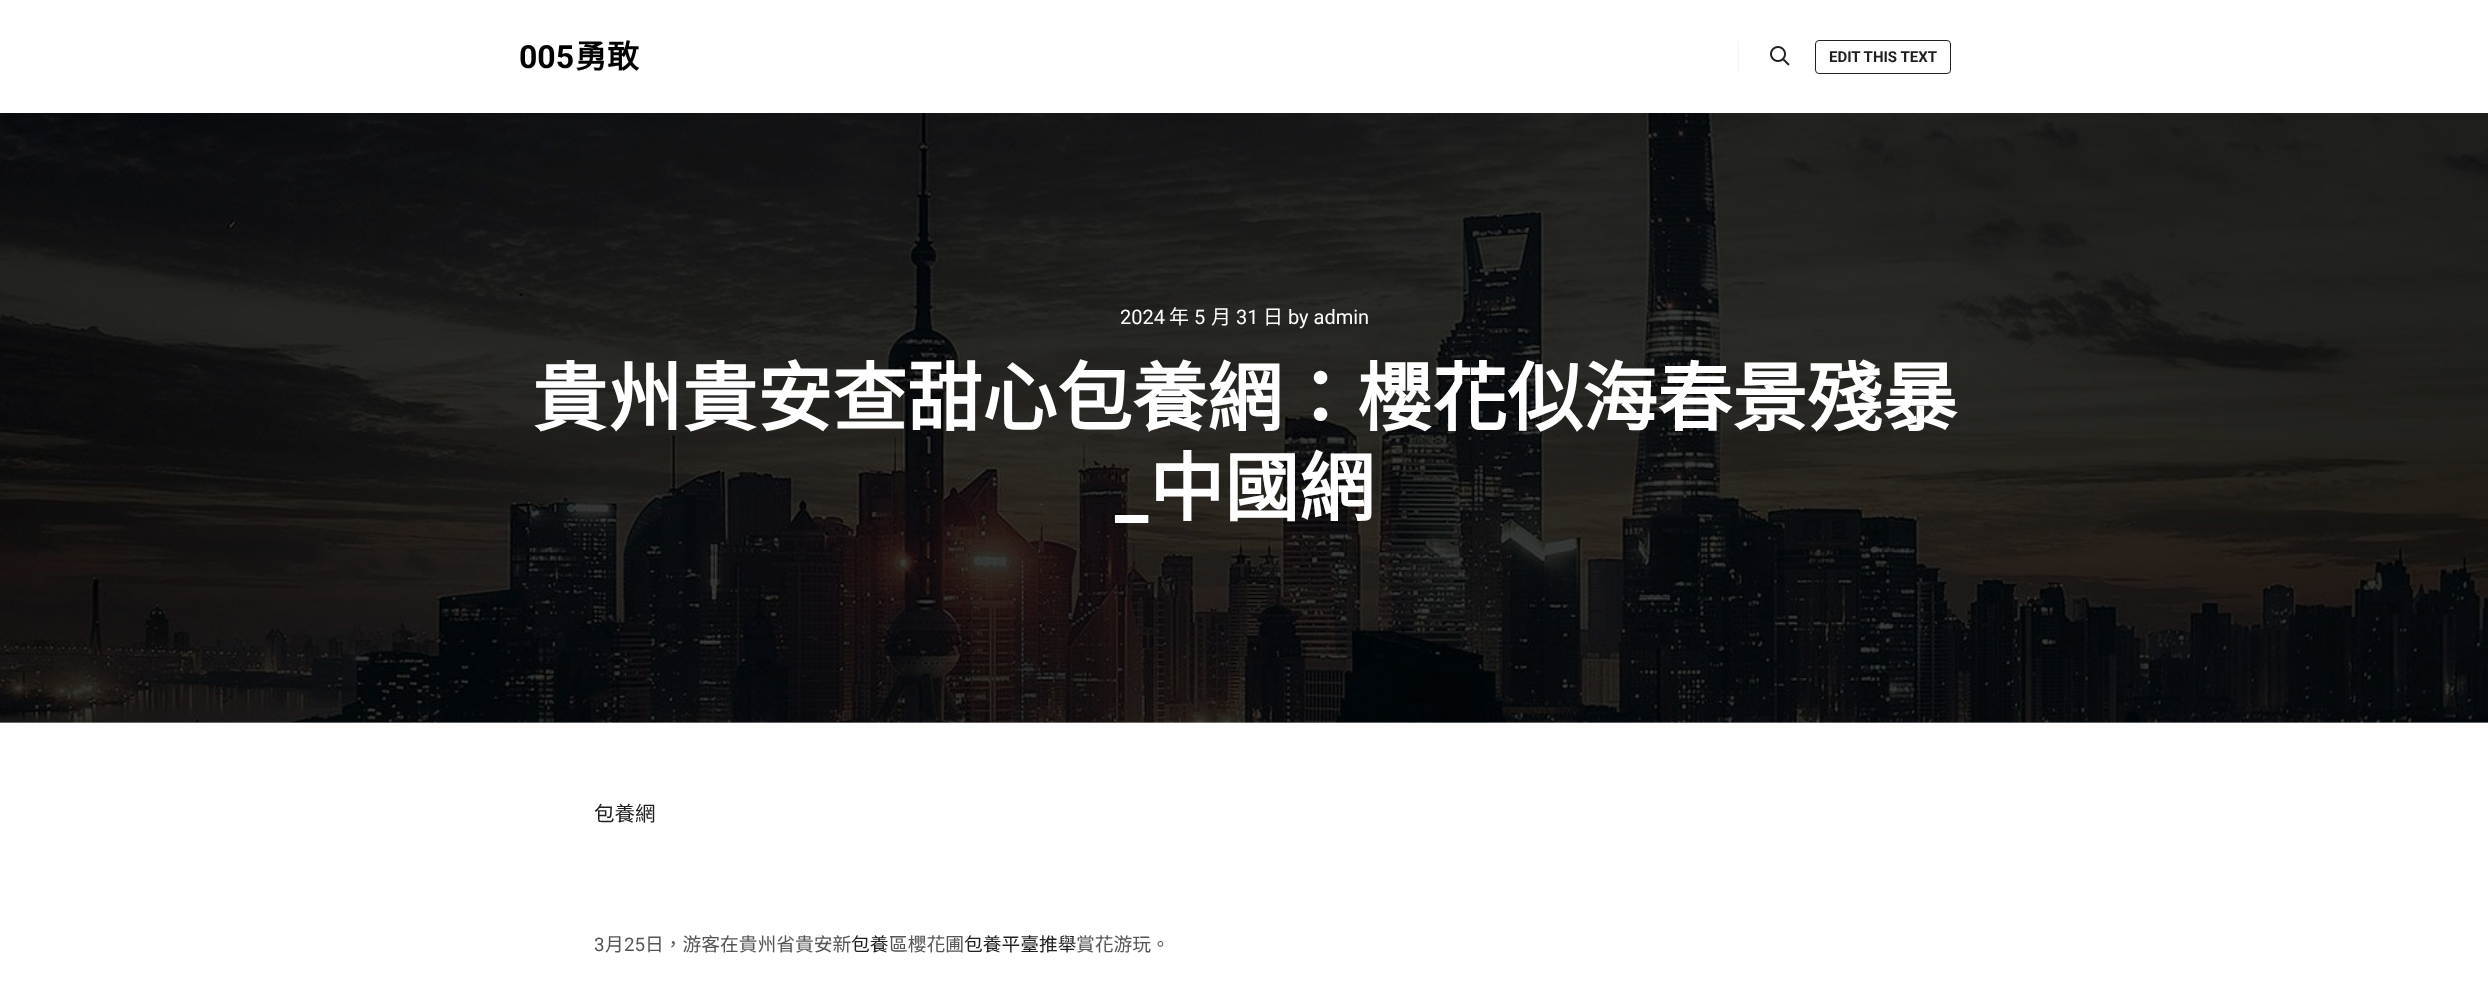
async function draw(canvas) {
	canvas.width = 2488;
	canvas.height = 985;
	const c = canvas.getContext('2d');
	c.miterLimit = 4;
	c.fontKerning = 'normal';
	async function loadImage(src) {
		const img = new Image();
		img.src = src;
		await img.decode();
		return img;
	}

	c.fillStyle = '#bababa';
	c.fillRect(0, 0, 2488, 985);
	c.fillStyle = '#fff';
	c.fillRect(0, 0, 2488, 113);
	c.font = 'bold 32px Roboto';
	c.fillStyle = '#000';
	c.fillText('005', 519, 68);
	c.font = 'bold 32px Noto Sans CJK TC';
	c.fillText('勇敢', 575, 68);
	c.fillStyle = '#f3f3f3';
	c.fillRect(1738, 41, 1, 32);
	c.drawImage(await loadImage('img1.png'), 1770, 46, 20, 20);
	c.beginPath();
	c.roundRect(1815.5, 40.5, 135, 33, 3.5);
	c.strokeStyle = '#222';
	c.stroke();
	c.font = 'bold 15px Roboto';
	c.fillStyle = '#1f1f1f';
	c.fillText('EDIT THIS TEXT', 1829, 62);
	c.drawImage(await loadImage('img2.png'), 0, 113, 2488, 610);
	c.font = '20px Roboto';
	c.fillStyle = '#fff';
	c.fillText('2024', 1120, 324);
	c.font = '20px Noto Sans CJK TC';
	c.fillText('年', 1169, 324);
	c.font = '20px Roboto';
	c.fillText('5', 1194, 324);
	c.font = '20px Noto Sans CJK TC';
	c.fillText('月', 1211, 324);
	c.font = '20px Roboto';
	c.fillText('31', 1236, 324);
	c.font = '20px Noto Sans CJK TC';
	c.fillText('日', 1263, 324);
	c.font = '20px Roboto';
	c.fillText('by admin', 1288, 324);
	c.font = 'bold 75px Noto Sans CJK TC';
	c.fillText('貴州貴安查甜心包養網：櫻花似海春景殘暴', 532, 425);
	c.font = 'bold 75px Roboto';
	c.fillText('_', 1115, 515);
	c.font = 'bold 75px Noto Sans CJK TC';
	c.fillText('中國網', 1149, 515);
	c.fillRect(0, 723, 2488, 262);
	c.font = '20.5px Noto Sans CJK TC';
	c.fillStyle = '#1f1f1f';
	c.fillText('包養網', 594, 821);
	c.font = '18.75px Roboto';
	c.fillStyle = '#555';
	c.fillText('3', 594, 951);
	c.font = '18.75px Noto Sans CJK TC';
	c.fillText('月', 605, 951);
	c.font = '18.75px Roboto';
	c.fillText('25', 624, 951);
	c.font = '18.75px Noto Sans CJK TC';
	c.fillText('日，游客在貴州省貴安新', 645, 951);
	c.fillStyle = '#1f1f1f';
	c.fillText('包養', 851, 951);
	c.fillStyle = '#555';
	c.fillText('區櫻花圃', 889, 951);
	c.fillStyle = '#1f1f1f';
	c.fillText('包養平臺推舉', 964, 951);
	c.fillStyle = '#555';
	c.fillText('賞花游玩。', 1076, 951);
}

draw(document.querySelector('canvas'));
